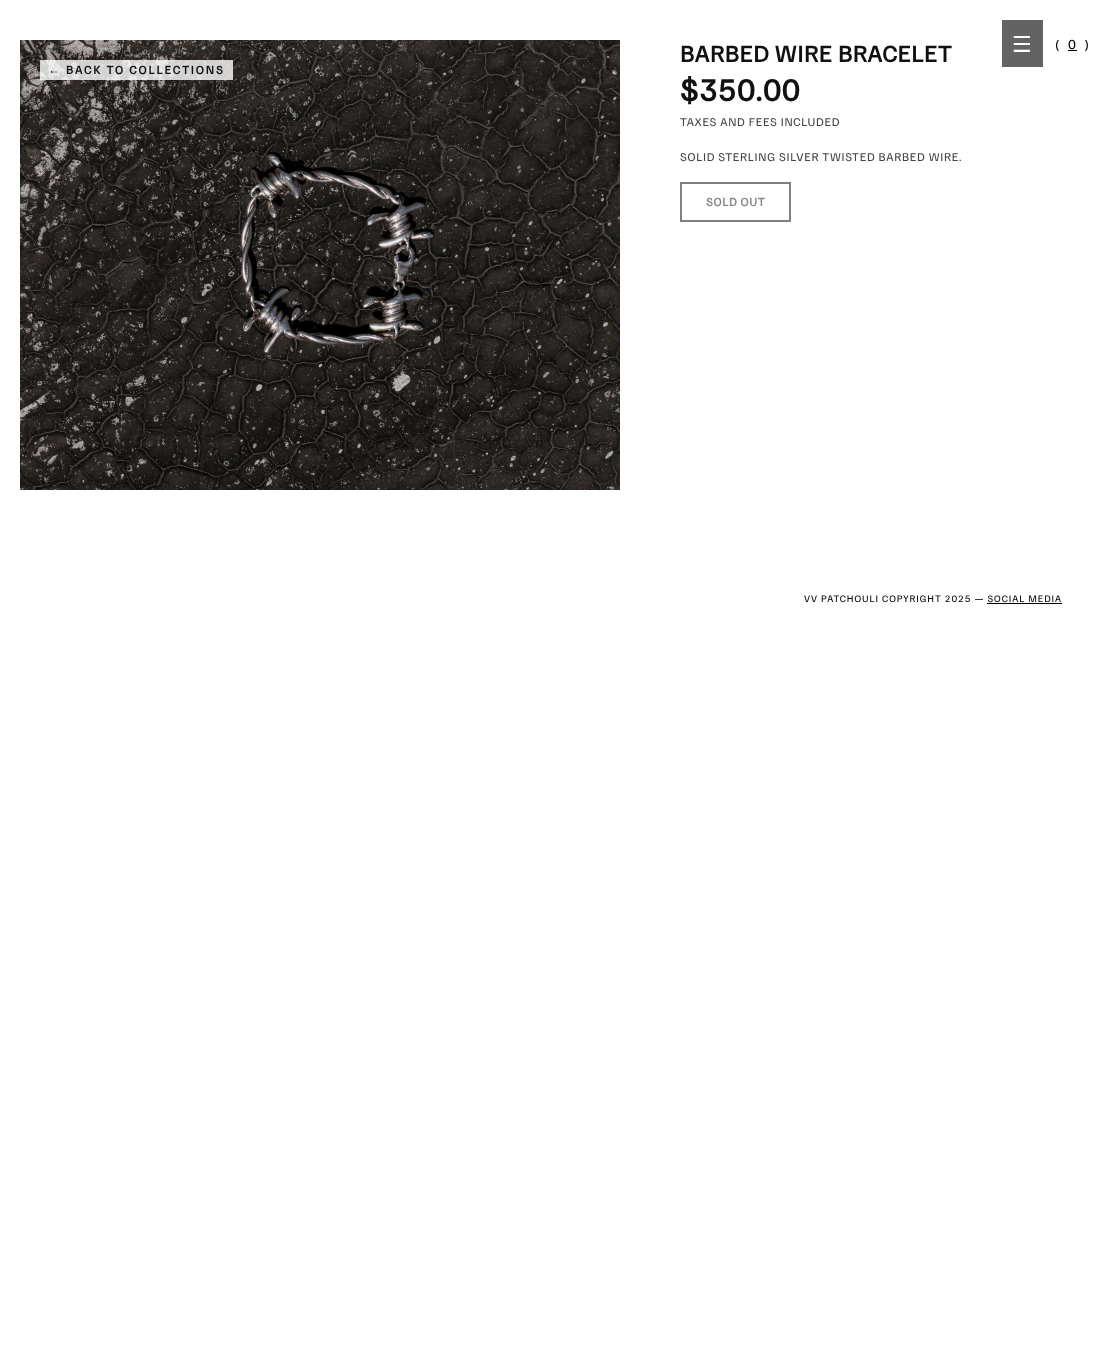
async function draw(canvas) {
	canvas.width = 1110;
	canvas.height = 1367;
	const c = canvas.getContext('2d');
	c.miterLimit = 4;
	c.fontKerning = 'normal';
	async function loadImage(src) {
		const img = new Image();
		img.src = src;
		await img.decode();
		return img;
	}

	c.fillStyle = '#fff';
	c.fillRect(0, 0, 1110, 1367);
	c.fillStyle = '#636363';
	c.fillRect(1002, 20, 41, 47);
	c.letterSpacing = '0.75px';
	c.font = '22px DejaVu Sans';
	c.fillStyle = '#fff';
	c.fillText('☰', 1012, 52);
	c.font = '14px Familjen Grotesk';
	c.fillStyle = '#000';
	c.fillText('(', 1055, 49);
	c.fillText('0', 1068, 49);
	c.fillRect(1068, 50, 9, 1);
	c.fillText(')', 1084, 49);
	c.drawImage(await loadImage('img1.png'), 20, 40, 600, 450);
	c.fillStyle = '#ffffffcc';
	c.fillRect(40, 60, 193, 20);
	c.letterSpacing = '2px';
	c.font = 'bold 12px Liberation Sans';
	c.fillStyle = '#111';
	c.fillText('←', 48, 74);
	c.font = 'bold 12px Familjen Grotesk';
	c.fillText('BACK TO COLLECTIONS', 66, 74);
	c.letterSpacing = '0.75px';
	c.font = 'bold 24px Familjen Grotesk';
	c.fillText('BARBED WIRE BRACELET', 680, 62);
	c.font = 'bold 32px Familjen Grotesk';
	c.fillText('$350.00', 680, 101);
	c.font = '12px Familjen Grotesk';
	c.fillStyle = '#444';
	c.fillText('TAXES AND FEES INCLUDED', 680, 126);
	c.fillText('SOLID STERLING SILVER TWISTED BARBED WIRE.', 680, 161);
	c.strokeStyle = '#808080';
	c.lineWidth = 2;
	c.strokeRect(681, 183, 109, 38);
	c.font = 'bold 12px Familjen Grotesk';
	c.fillStyle = '#888';
	c.fillText('SOLD OUT', 706, 206);
	c.letterSpacing = '1px';
	c.font = '10px Familjen Grotesk';
	c.fillStyle = '#000';
	c.fillText('VV PATCHOULI COPYRIGHT 2025 — SOCIAL MEDIA', 804, 602);
	c.fillRect(987, 603, 75, 1);
}

draw(document.querySelector('canvas'));
